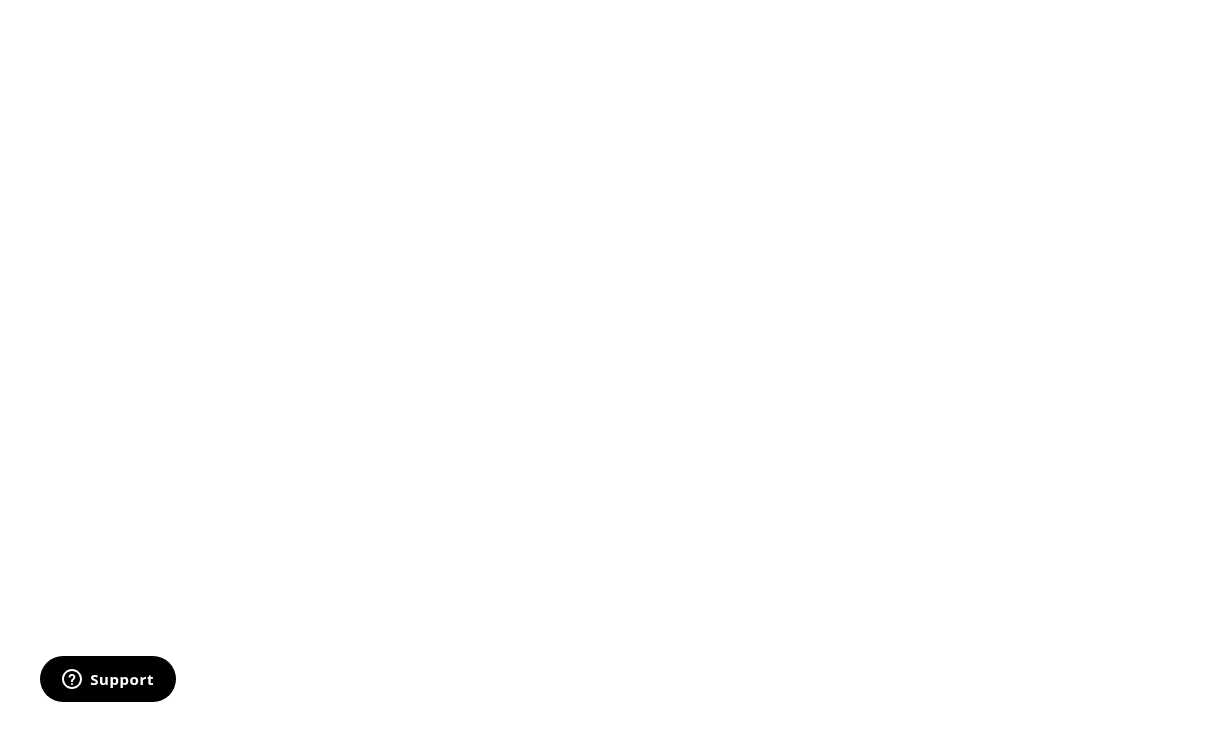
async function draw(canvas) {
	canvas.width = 1211;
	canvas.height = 736;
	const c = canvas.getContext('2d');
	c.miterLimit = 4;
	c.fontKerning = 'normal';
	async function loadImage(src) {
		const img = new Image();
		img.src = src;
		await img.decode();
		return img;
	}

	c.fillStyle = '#fff';
	c.fillRect(0, 0, 1211, 736);
	c.drawImage(await loadImage('img1.png'), 40, 656, 136, 46);
}

draw(document.querySelector('canvas'));
